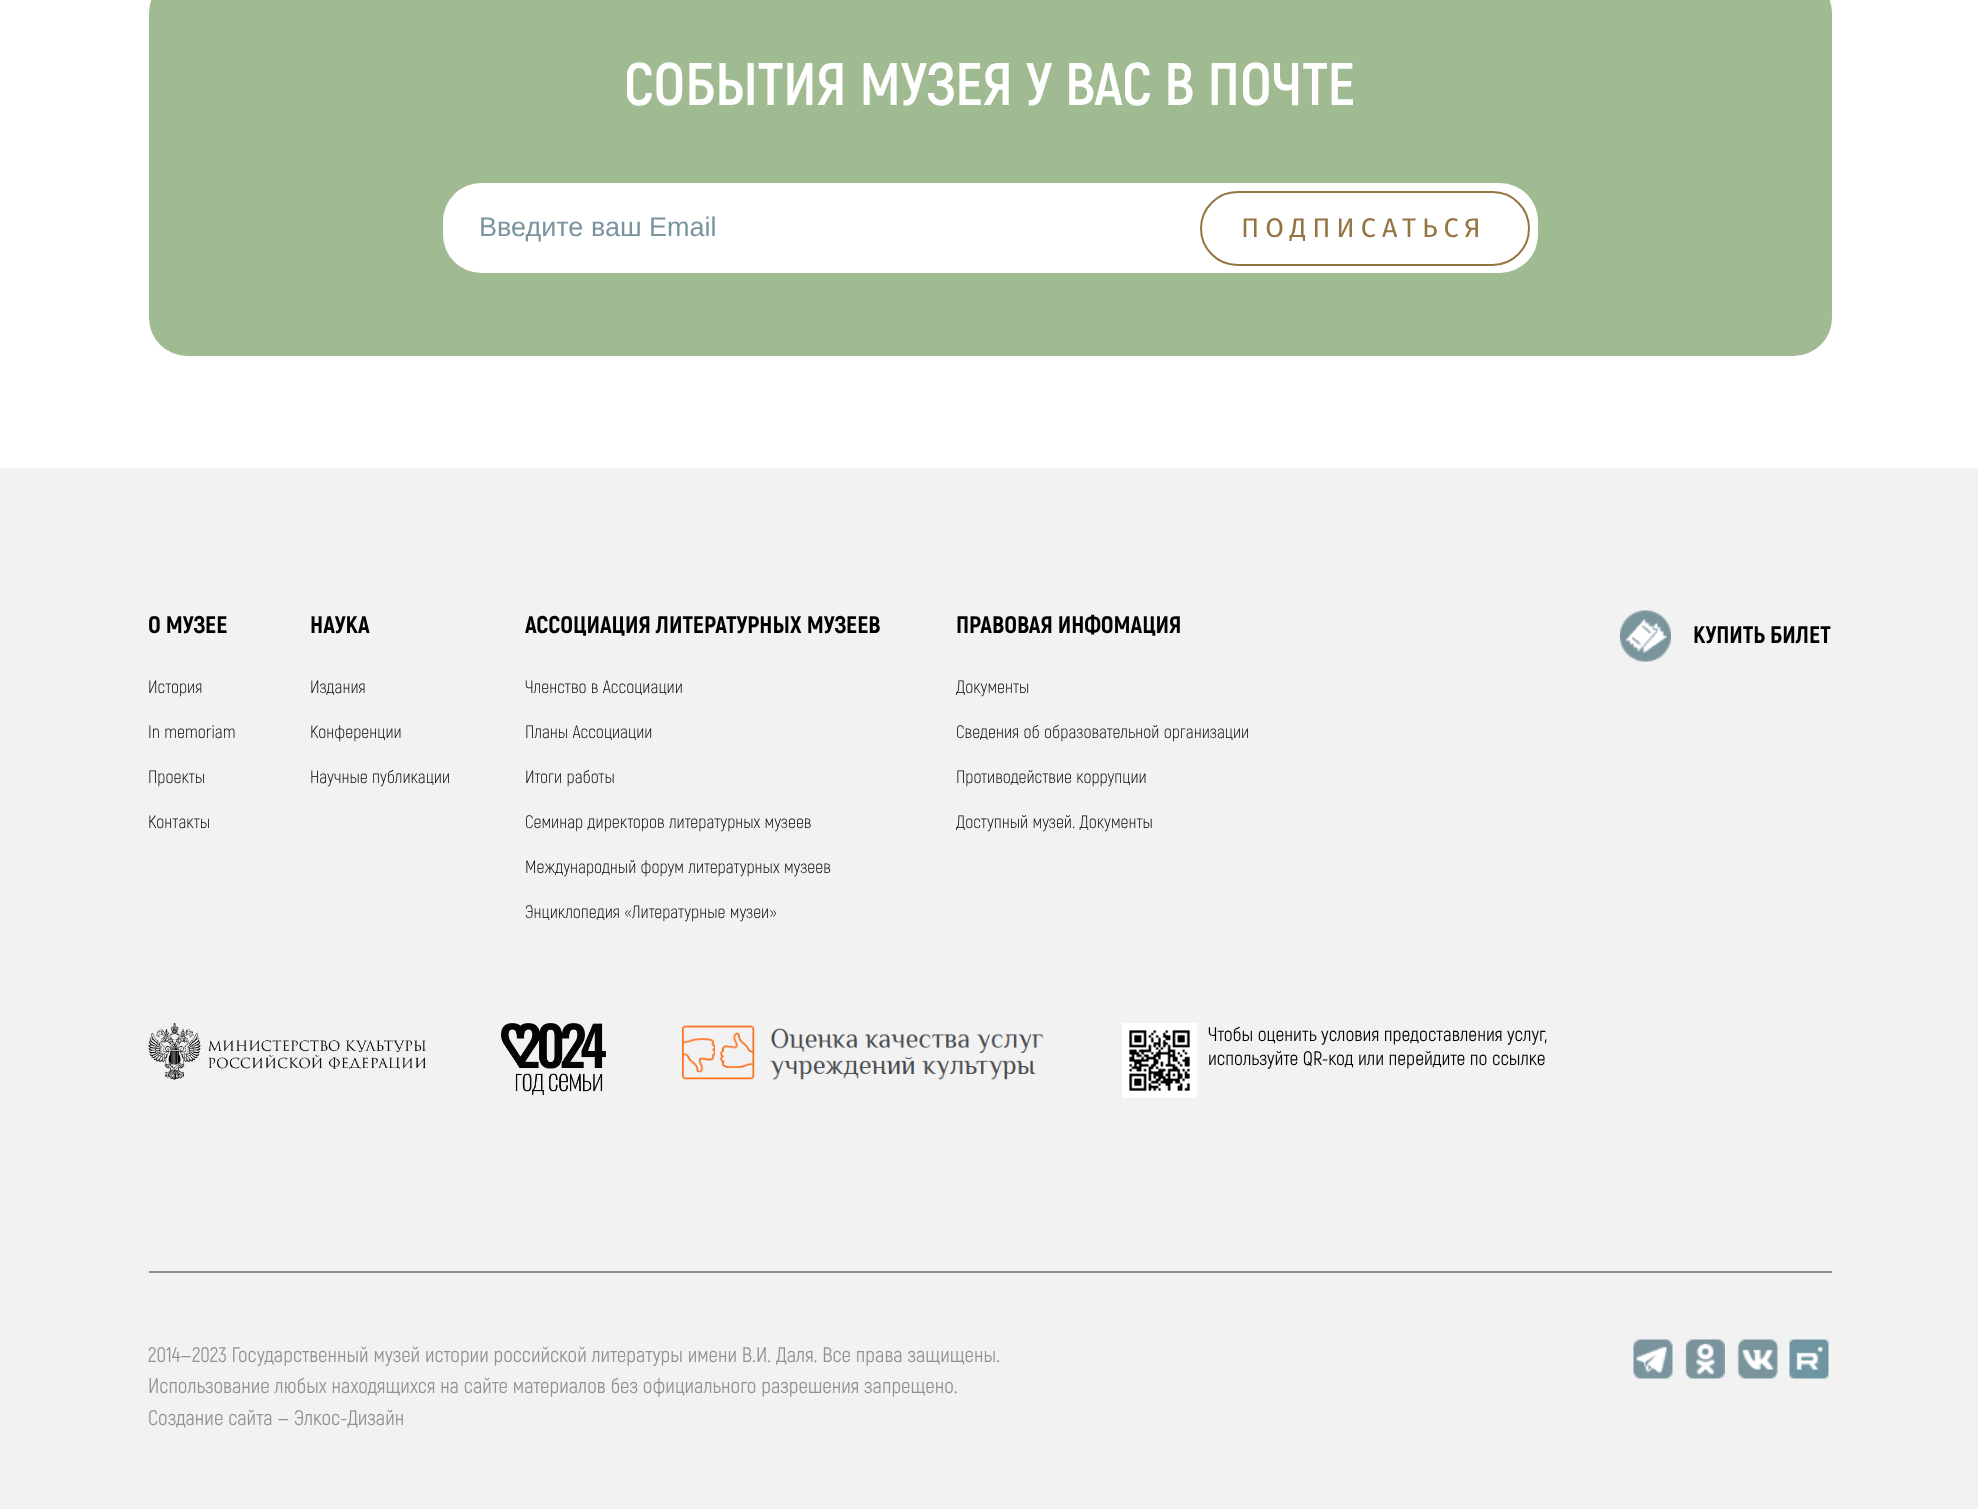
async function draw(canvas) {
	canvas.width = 1978;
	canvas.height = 1509;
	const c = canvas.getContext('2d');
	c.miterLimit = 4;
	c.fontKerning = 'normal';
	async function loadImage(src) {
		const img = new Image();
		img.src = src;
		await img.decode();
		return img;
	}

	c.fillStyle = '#fff';
	c.fillRect(0, 0, 1978, 1509);
	c.fillStyle = '#a0ba92';
	c.beginPath();
	c.roundRect(149, -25, 1683, 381, 38);
	c.fill();
	c.font = 'bold 60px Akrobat';
	c.fillStyle = '#fff';
	c.fillText('СОБЫТИЯ МУЗЕЯ У ВАС В ПОЧТЕ', 624, 105);
	c.beginPath();
	c.roundRect(443, 183, 1095, 90, 38);
	c.fill();
	c.font = '27px Liberation Sans';
	c.fillStyle = '#7a949e';
	c.fillText('Введите ваш Email', 479, 236);
	c.beginPath();
	c.roundRect(1201, 192, 328, 73, 36.5);
	c.strokeStyle = '#947542';
	c.lineWidth = 2;
	c.stroke();
	c.letterSpacing = '6px';
	c.font = '27px Fira Sans';
	c.fillStyle = '#947542';
	c.fillText('ПОДПИСАТЬСЯ', 1241, 237);
	c.fillStyle = '#f2f2f2';
	c.fillRect(0, 468, 1978, 1041);
	c.letterSpacing = '0px';
	c.font = '800 24px Akrobat';
	c.fillStyle = '#000';
	c.fillText('О МУЗЕЕ', 148, 633);
	c.font = '300 18px Akrobat';
	for (const [text, x, y] of [
		['История', 148, 693],
		['In memoriam', 148, 738],
		['Проекты', 148, 783],
		['Контакты', 148, 828],
	]) {
		c.fillText(text, x, y);
	}
	c.font = '800 24px Akrobat';
	c.fillText('НАУКА', 310, 633);
	c.font = '300 18px Akrobat';
	for (const [text, x, y] of [
		['Издания', 310, 693],
		['Конференции', 310, 738],
		['Научные публикации', 310, 783],
	]) {
		c.fillText(text, x, y);
	}
	c.font = '800 24px Akrobat';
	c.fillText('АССОЦИАЦИЯ ЛИТЕРАТУРНЫХ МУЗЕЕВ', 525, 633);
	c.font = '300 18px Akrobat';
	for (const [text, x, y] of [
		['Членство в Ассоциации', 525, 693],
		['Планы Ассоциации', 525, 738],
		['Итоги работы', 525, 783],
		['Семинар директоров литературных музеев', 525, 828],
		['Международный форум литературных музеев', 525, 873],
		['Энциклопедия «Литературные музеи»', 525, 918],
	]) {
		c.fillText(text, x, y);
	}
	c.font = '800 24px Akrobat';
	c.fillText('ПРАВОВАЯ ИНФОМАЦИЯ', 956, 633);
	c.font = '300 18px Akrobat';
	for (const [text, x, y] of [
		['Документы', 956, 693],
		['Сведения об образовательной организации', 956, 738],
		['Противодействие коррупции', 956, 783],
		['Доступный музей. Документы', 956, 828],
	]) {
		c.fillText(text, x, y);
	}
	c.drawImage(await loadImage('img1.png'), 1620, 610, 51, 52);
	c.font = '800 24px Akrobat';
	c.fillText('КУПИТЬ БИЛЕТ', 1693, 643);
	c.drawImage(await loadImage('img2.png'), 148, 1023, 278, 57);
	c.drawImage(await loadImage('img3.png'), 501, 1023, 105, 72);
	c.drawImage(await loadImage('img4.png'), 682, 1025, 362, 55);
	c.drawImage(await loadImage('img5.png'), 1122, 1023, 75, 75);
	c.font = '19.5px Akrobat';
	c.fillText('Чтобы оценить условия предоставления услуг,', 1208, 1041);
	c.fillText('используйте QR-код или перейдите по ссылке', 1208, 1065);
	c.fillStyle = '#919191';
	c.fillRect(149, 1271, 1683, 2);
	c.font = '21px Akrobat';
	for (const [text, x, y] of [
		['2014—2023 Государственный музей истории российской литературы имени В.И. Даля. Все права защищены.', 148, 1362],
		['Использование любых находящихся на сайте материалов без официального разрешения запрещено.', 148, 1393],
		['Создание сайта — Элкос-Дизайн', 148, 1425],
	]) {
		c.fillText(text, x, y);
	}
	c.drawImage(await loadImage('img6.png'), 1633, 1339, 40, 40);
	c.drawImage(await loadImage('img7.png'), 1685, 1339, 40, 40);
	c.drawImage(await loadImage('img8.png'), 1737, 1339, 41, 40);
	c.drawImage(await loadImage('img9.png'), 1789, 1339, 40, 40);
}

draw(document.querySelector('canvas'));
